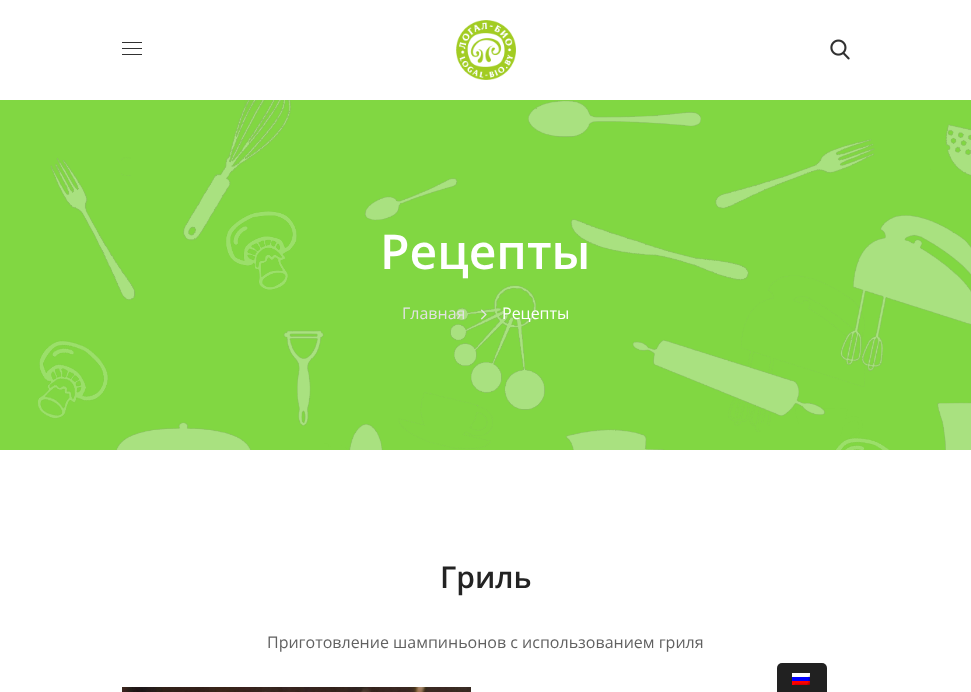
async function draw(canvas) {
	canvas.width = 971;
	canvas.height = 692;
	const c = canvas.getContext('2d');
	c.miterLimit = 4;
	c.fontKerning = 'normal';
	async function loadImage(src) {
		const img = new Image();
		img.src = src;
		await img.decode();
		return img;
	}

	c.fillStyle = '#fff';
	c.fillRect(0, 0, 971, 692);
	for (const [x, y, w, h, color] of [
		[122, 42, 20, 1, '#313131'],
		[122, 48, 20, 1, '#313131'],
		[122, 54, 20, 1, '#313131'],
	]) {
		c.fillStyle = color;
		c.fillRect(x, y, w, h);
	}
	c.drawImage(await loadImage('img1.png'), 456, 20, 60, 60);
	c.drawImage(await loadImage('img2.png'), 830, 39, 20, 21);
	c.fillStyle = '#81d742';
	c.fillRect(0, 100, 971, 350);
	c.drawImage(await loadImage('img3.png'), 38, 100, 933, 350);
	c.font = '600 48px Open Sans';
	c.fillStyle = '#fff';
	c.fillText('Рецепты', 380, 269);
	c.font = '16px Open Sans';
	c.fillStyle = '#e2e2e2';
	c.fillText('Главная', 402, 319);
	c.drawImage(await loadImage('img4.png'), 480, 309, 7, 11);
	c.fillStyle = '#fff';
	c.fillText('Рецепты', 502, 319);
	c.font = '600 30px Open Sans';
	c.fillStyle = '#232323';
	c.fillText('Гриль', 440, 588);
	c.font = '16px Open Sans';
	c.fillStyle = '#616161';
	c.fillText('Приготовление шампиньонов с использованием гриля', 267, 648);
	c.drawImage(await loadImage('img5.png'), 122, 687, 349, 5);
	c.fillStyle = '#212121';
	c.beginPath();
	c.roundRect(777, 663, 50, 29, [5, 5, 0, 0]);
	c.fill();
	c.drawImage(await loadImage('img6.png'), 792, 673, 18, 12);
}

draw(document.querySelector('canvas'));
